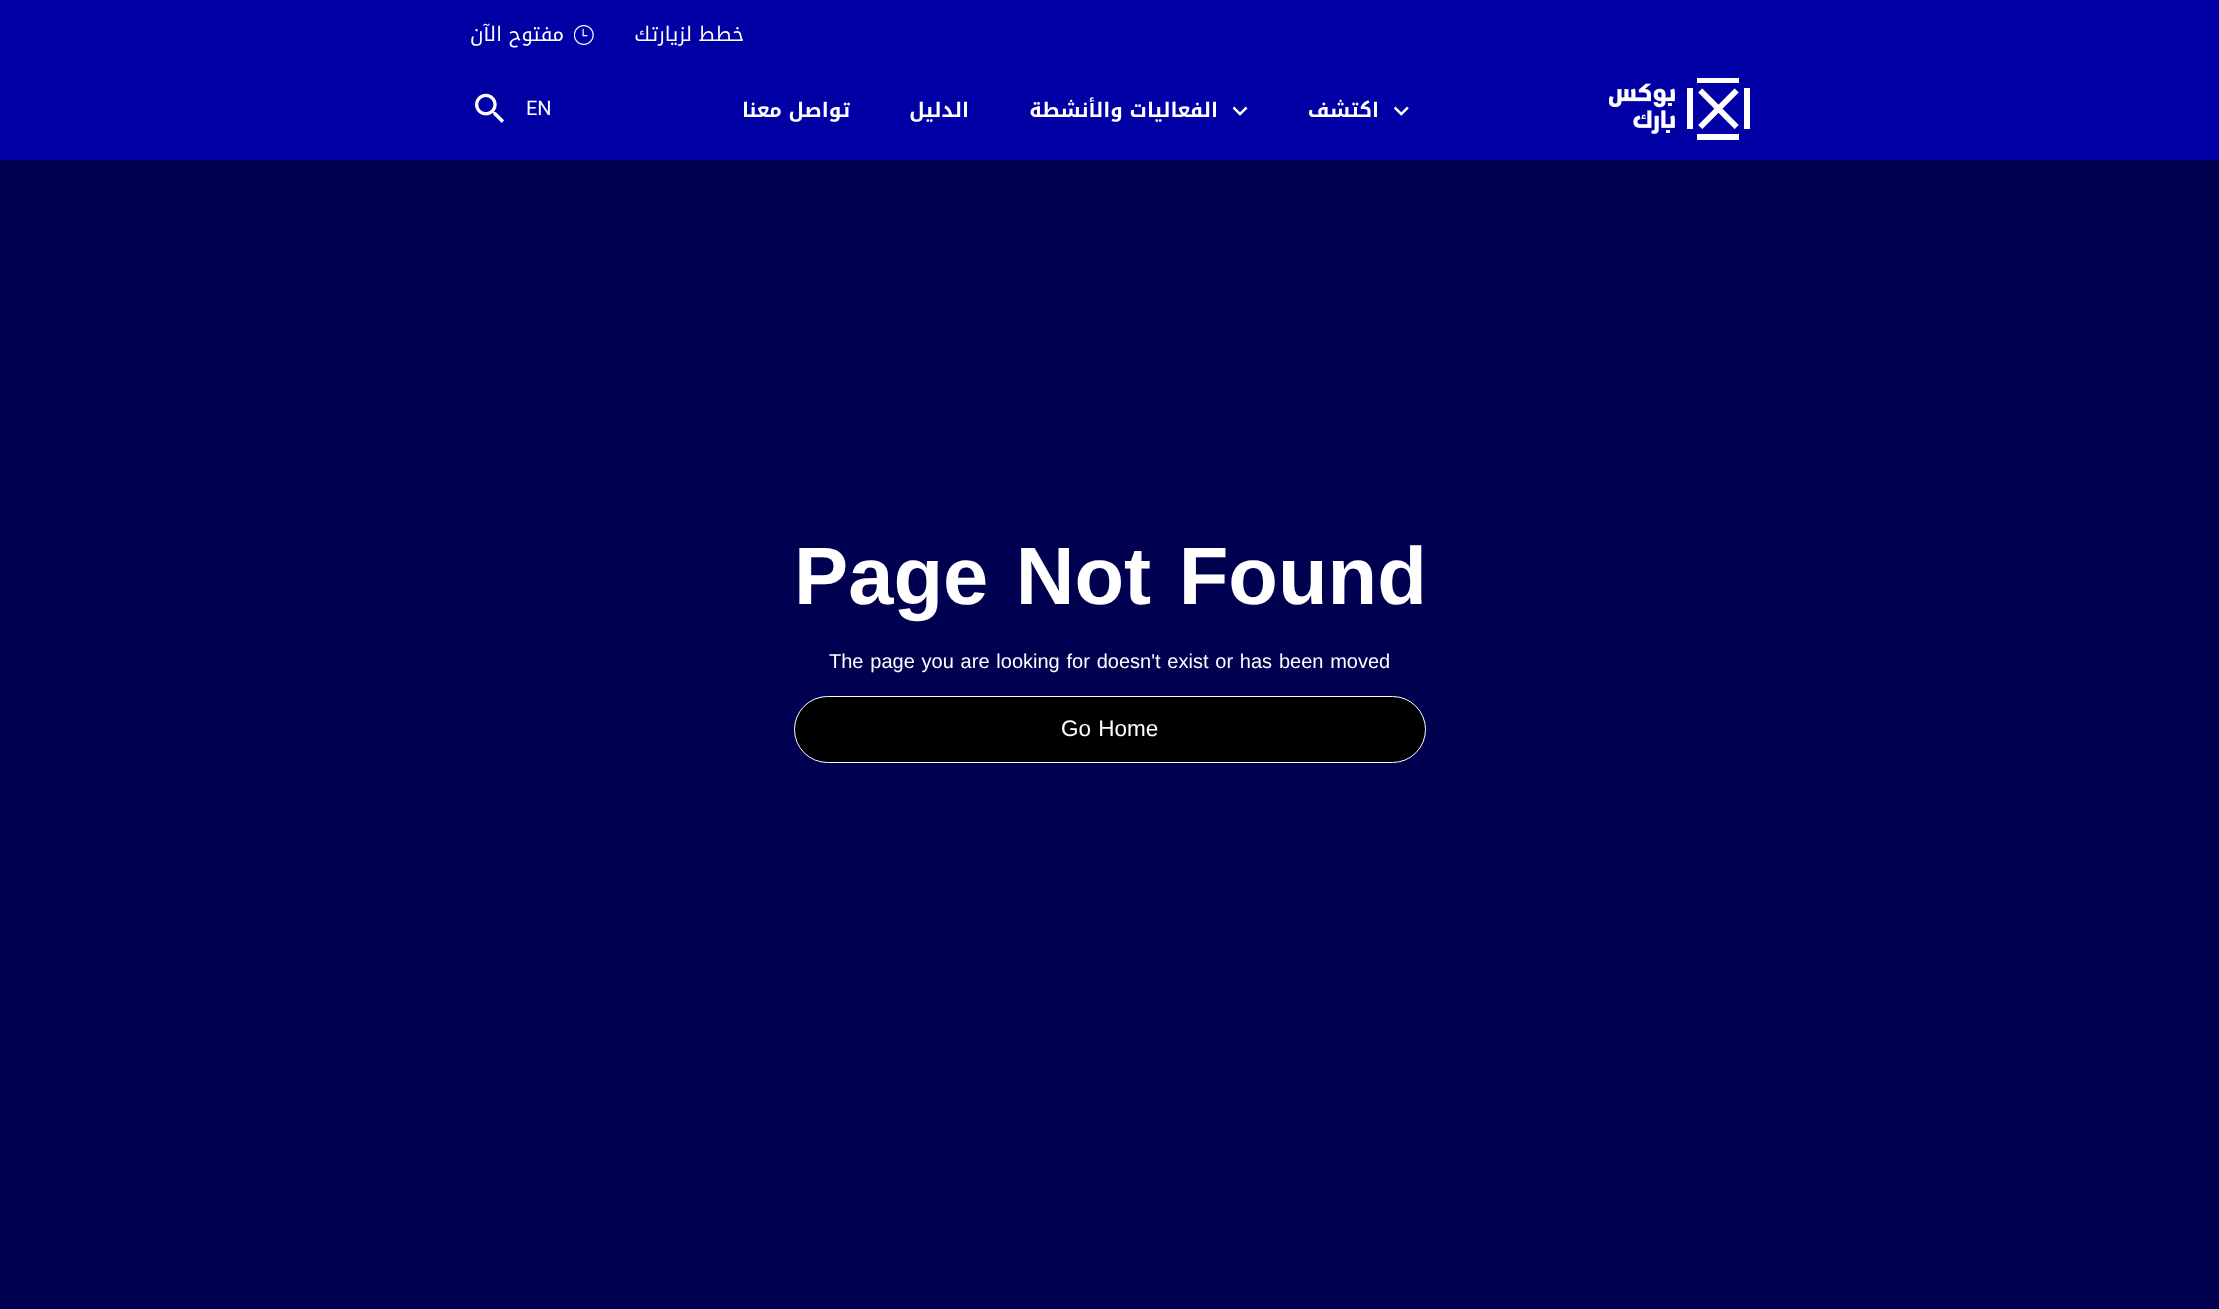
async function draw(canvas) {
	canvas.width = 2219;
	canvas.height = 1309;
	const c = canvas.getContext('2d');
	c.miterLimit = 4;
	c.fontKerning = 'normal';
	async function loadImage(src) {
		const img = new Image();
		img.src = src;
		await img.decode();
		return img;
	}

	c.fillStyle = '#000051';
	c.fillRect(0, 0, 2219, 1309);
	c.fillStyle = '#0000a5';
	c.fillRect(0, 0, 2219, 160);
	c.direction = 'rtl';
	c.font = '20px Noto Kufi Arabic';
	c.fillStyle = '#fff';
	c.fillText('مفتوح الآن', 564, 41);
	c.drawImage(await loadImage('img1.png'), 574, 25, 20, 20);
	c.fillText('خطط لزيارتك', 744, 41);
	c.drawImage(await loadImage('img2.png'), 475, 93, 30, 30);
	c.direction = 'ltr';
	c.font = '20px Roboto';
	c.fillText('EN', 526, 115);
	c.direction = 'rtl';
	c.font = 'bold 20px Noto Kufi Arabic';
	for (const [text, x, y] of [
		['تواصل معنا', 850, 117],
		['الدليل', 969, 117],
		['الفعاليات والأنشطة', 1218, 117],
	]) {
		c.fillText(text, x, y);
	}
	c.drawImage(await loadImage('img3.png'), 1233, 106, 15, 10);
	c.fillText('اكتشف', 1379, 117);
	c.drawImage(await loadImage('img4.png'), 1394, 106, 15, 10);
	c.drawImage(await loadImage('img5.png'), 1609, 78, 141, 62);
	c.wordSpacing = '5px';
	c.direction = 'ltr';
	c.font = 'bold 81.25px Liberation Sans';
	c.fillText('Page Not Found', 794, 604);
	c.wordSpacing = '1.25px';
	c.font = '20px Liberation Sans';
	c.fillText('The page you are looking for doesn\'t exist or has been moved', 829, 668);
	c.fillStyle = '#000';
	c.beginPath();
	c.roundRect(794.5, 696.5, 631, 66, 33);
	c.fill();
	c.strokeStyle = '#fff';
	c.stroke();
	c.wordSpacing = '1px';
	c.font = '22.5px Liberation Sans';
	c.fillStyle = '#fff';
	c.fillText('Go Home', 1061, 736);
}

draw(document.querySelector('canvas'));
